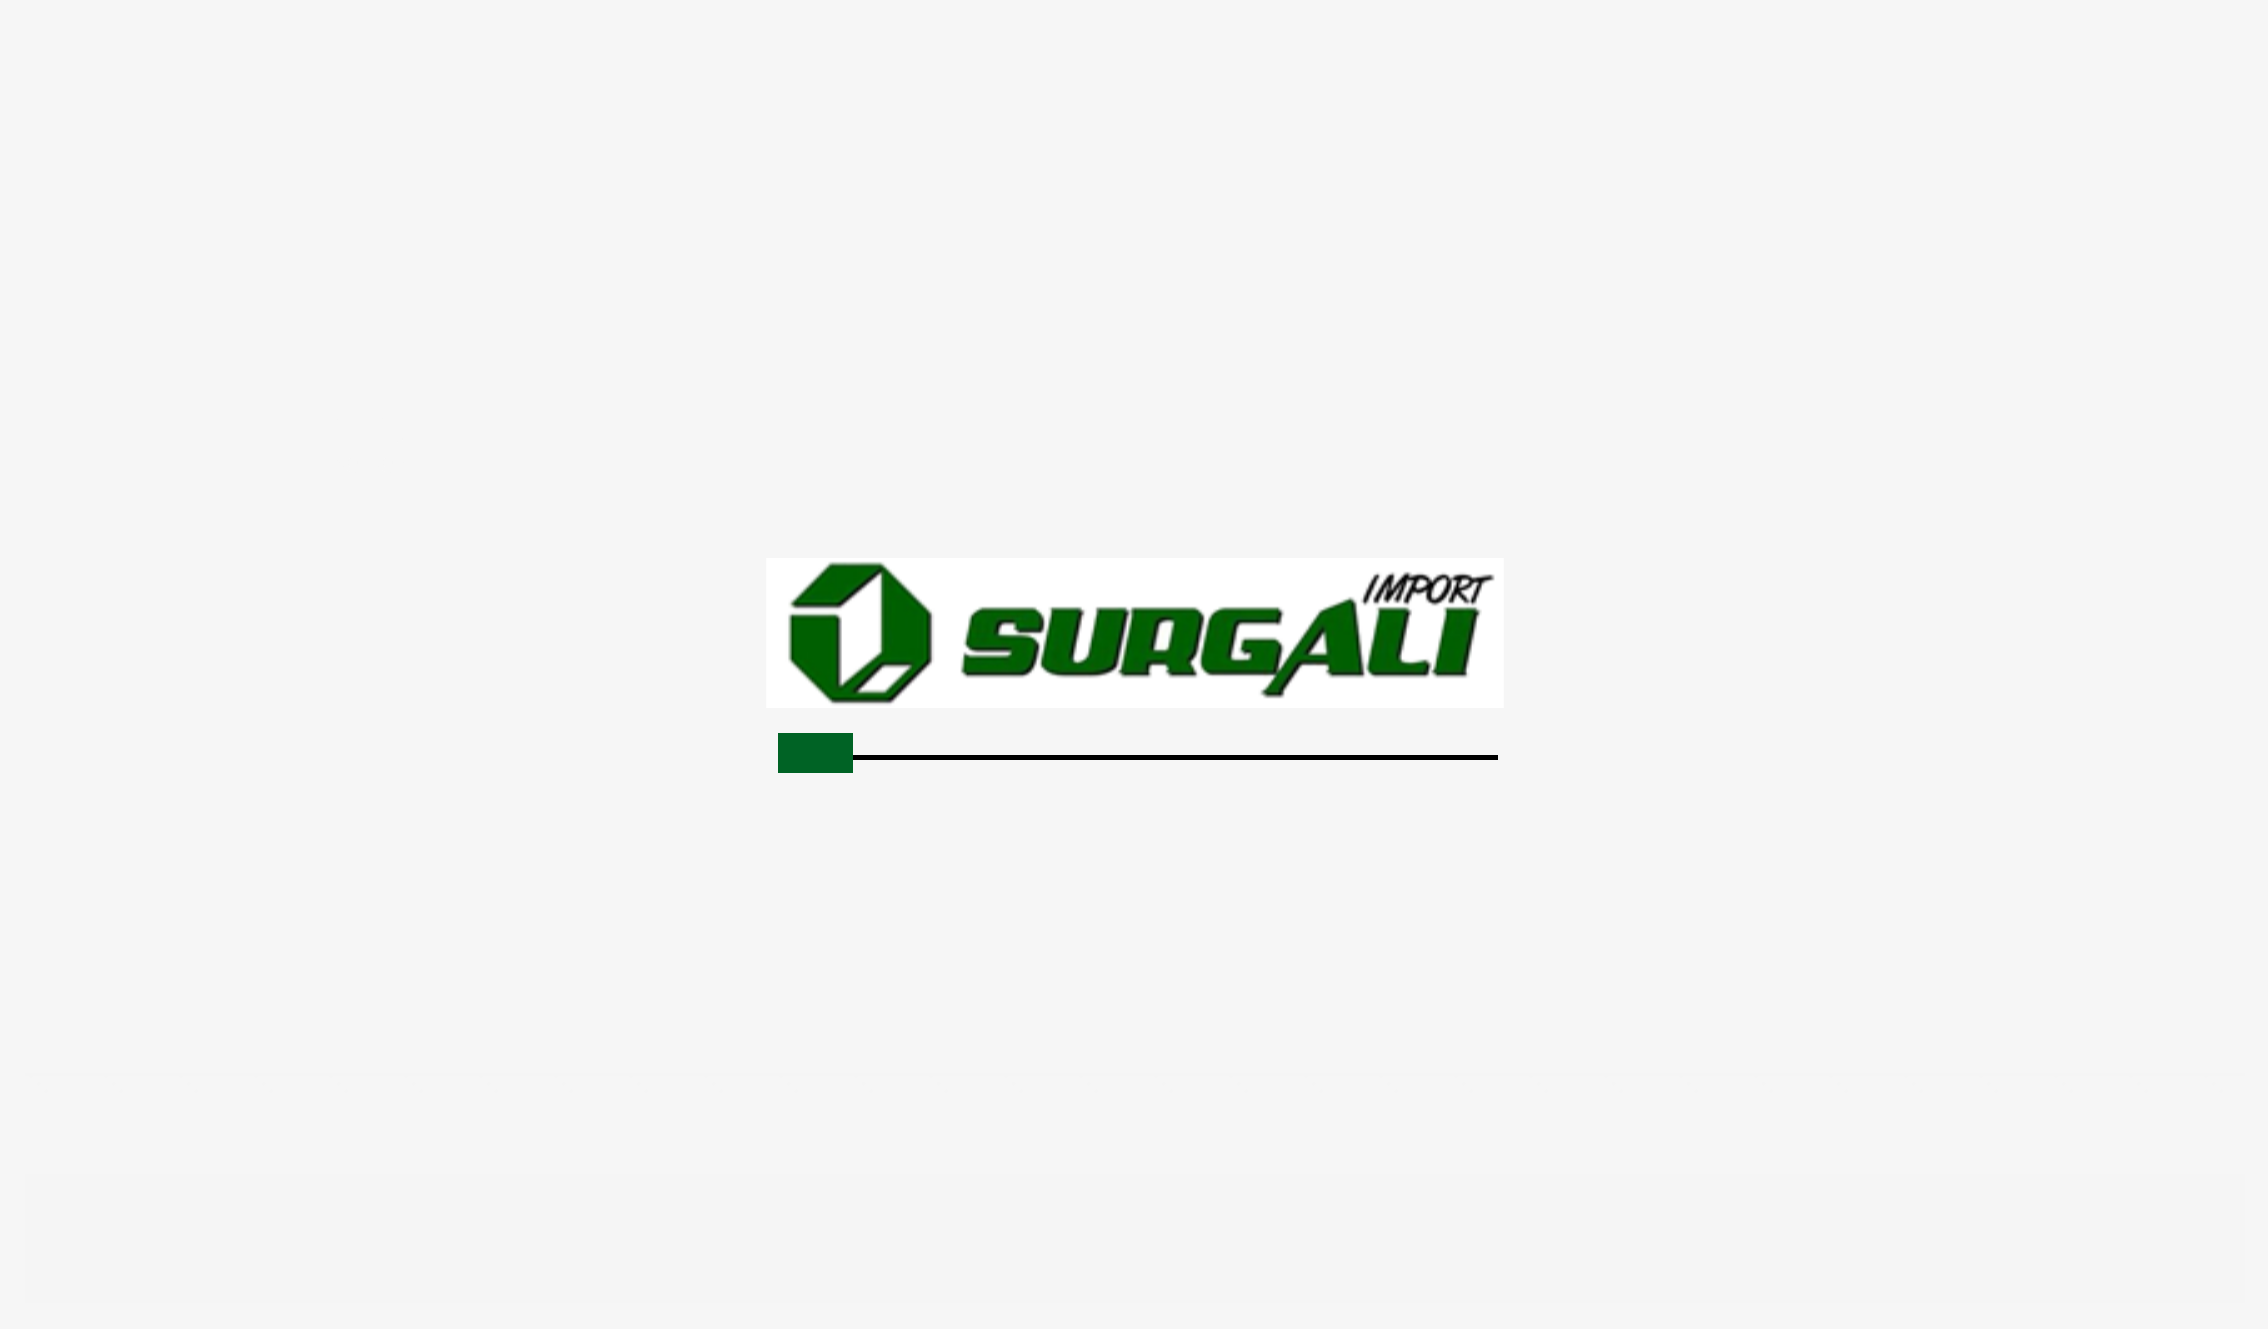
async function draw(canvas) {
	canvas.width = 2268;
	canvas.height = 1329;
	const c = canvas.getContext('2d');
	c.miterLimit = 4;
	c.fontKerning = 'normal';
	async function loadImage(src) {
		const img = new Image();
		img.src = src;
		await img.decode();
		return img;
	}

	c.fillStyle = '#f6f6f6';
	c.fillRect(0, 0, 2268, 1329);
	c.drawImage(await loadImage('img1.png'), 337, 417, 69, 56);
	c.drawImage(await loadImage('img2.png'), 789, 754, 707, 144);
	c.drawImage(await loadImage('img3.png'), 25, 1072, 2220, 257);
	c.drawImage(await loadImage('img4.png'), 766, 558, 738, 150);
	c.fillStyle = '#006325';
	c.fillRect(778, 733, 75, 40);
	c.fillStyle = '#000';
	c.fillRect(853, 755, 645, 5);
}

draw(document.querySelector('canvas'));
